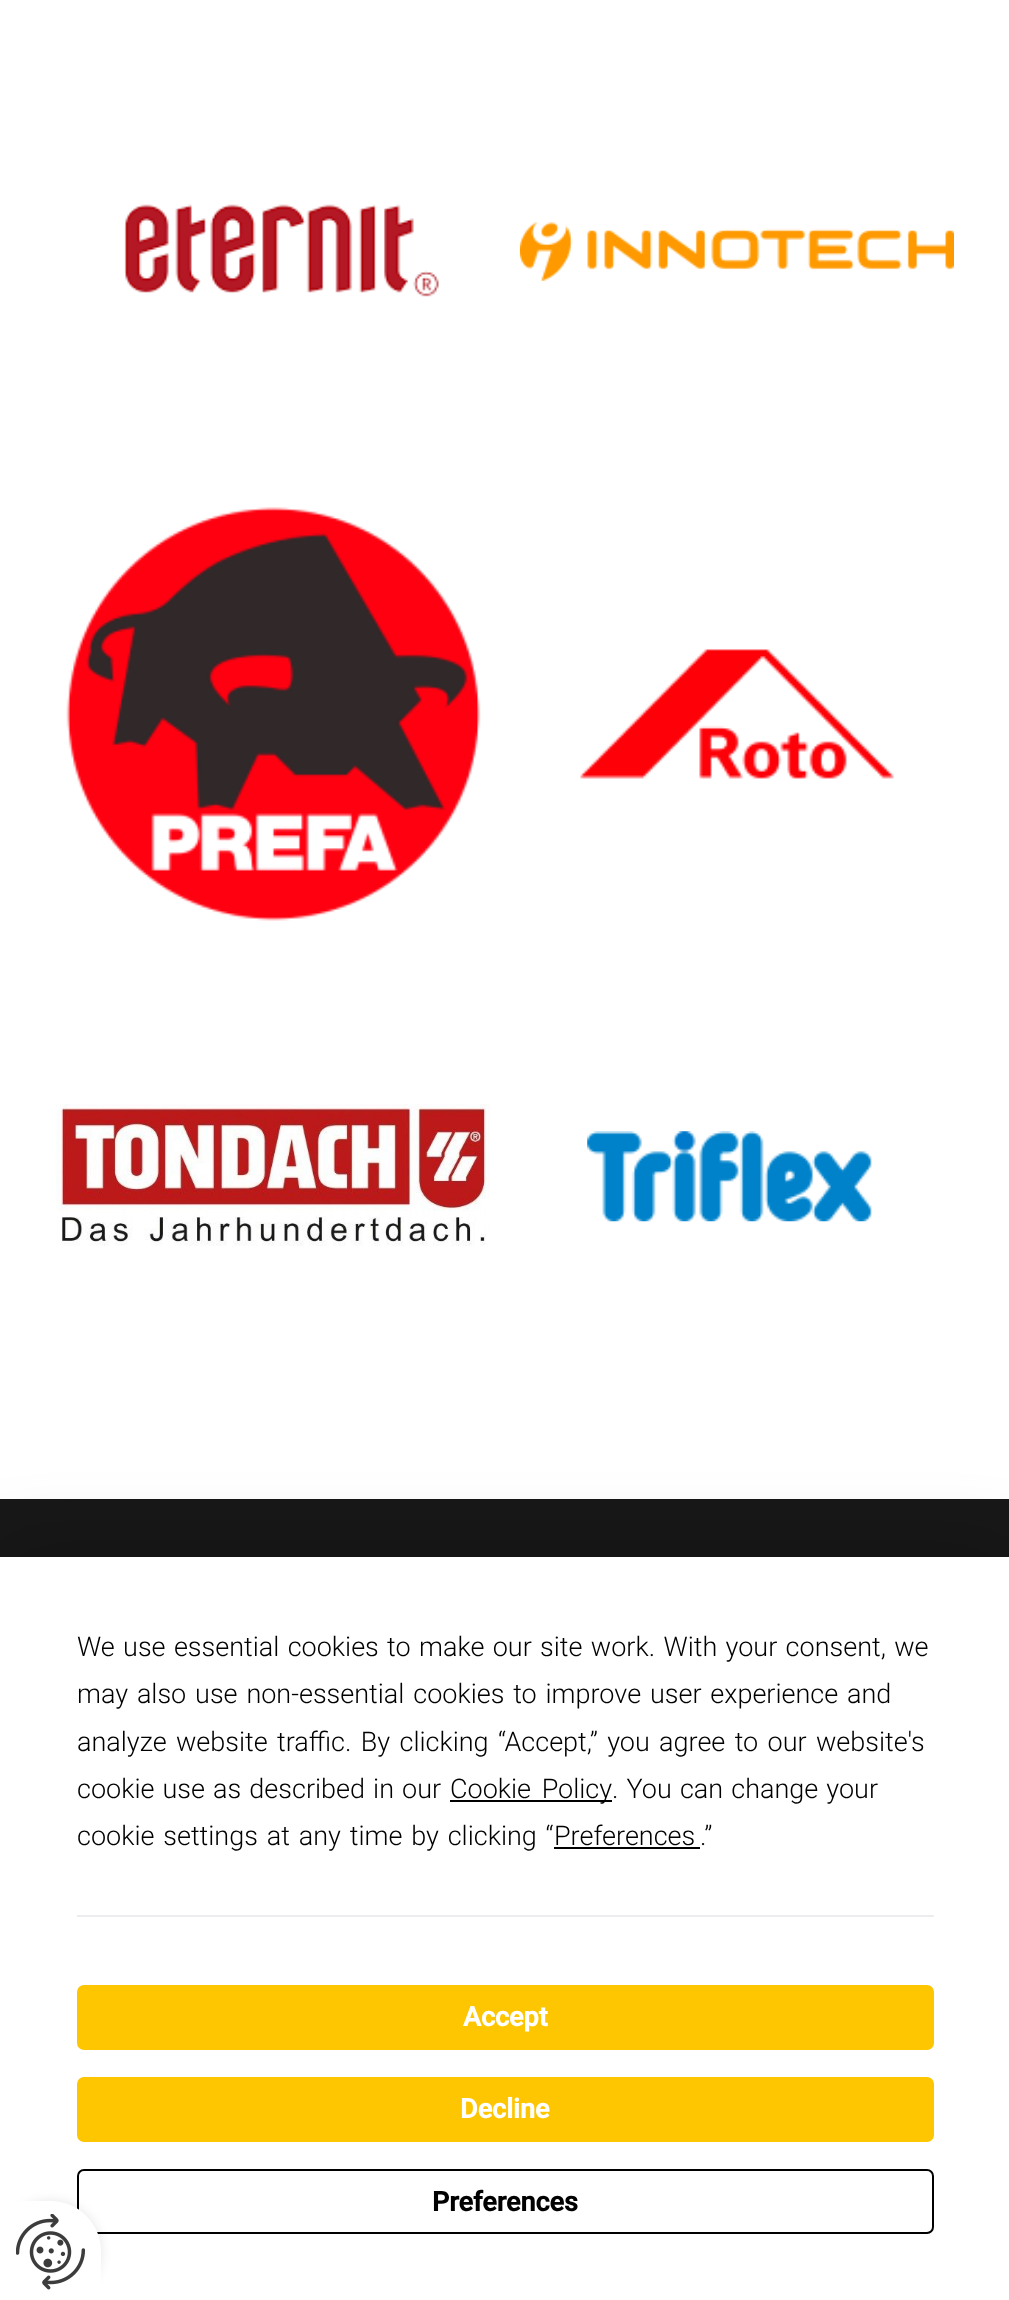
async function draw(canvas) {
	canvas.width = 1009;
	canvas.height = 2300;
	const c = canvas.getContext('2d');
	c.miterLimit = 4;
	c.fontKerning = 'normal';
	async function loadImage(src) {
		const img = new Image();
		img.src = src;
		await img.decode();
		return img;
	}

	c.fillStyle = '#fff';
	c.fillRect(0, 0, 1009, 2300);
	c.drawImage(await loadImage('img1.png'), 124, 204, 315, 93);
	c.drawImage(await loadImage('img2.png'), 519, 222, 435, 59);
	c.drawImage(await loadImage('img3.png'), 66, 507, 415, 414);
	c.drawImage(await loadImage('img4.png'), 580, 649, 314, 130);
	c.drawImage(await loadImage('img5.png'), 56, 1104, 434, 142);
	c.drawImage(await loadImage('img6.png'), 587, 1131, 285, 91);
	c.fillStyle = '#181818';
	c.fillRect(0, 1499, 1009, 58);
	c.fillStyle = '#00000040';
	c.filter = 'blur(39.5px)';
	c.beginPath();
	c.rect(0, 1557, 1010, 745);
	c.fill();
	c.filter = 'none';
	c.fillStyle = '#fff';
	c.fillRect(0, 1557, 1009, 743);
	c.wordSpacing = '1.75px';
	c.font = '300 27px Roboto';
	c.fillStyle = '#000';
	c.fillText('We use essential cookies to make our site work. With your consent, we', 77, 1656);
	c.wordSpacing = '2.25px';
	c.fillText('may also use non-essential cookies to improve user experience and', 77, 1703);
	c.wordSpacing = '2.75px';
	c.fillText('analyze website traffic. By clicking “Accept,” you agree to our website\'s', 77, 1751);
	c.wordSpacing = '1.5px';
	c.fillText('cookie use as described in our', 77, 1798);
	c.fillRect(450, 1800, 162, 2);
	c.wordSpacing = '4px';
	c.fillText('Cookie Policy', 450, 1798);
	c.wordSpacing = '1.5px';
	c.fillText('. You can change your', 612, 1798);
	c.wordSpacing = '2.25px';
	c.fillText('cookie settings at any time by clicking “', 77, 1845);
	c.wordSpacing = '0px';
	c.fillText('Preferences', 554, 1845);
	c.fillRect(554, 1847, 146, 2);
	c.fillText('.”', 700, 1845);
	c.fillStyle = '#ededef';
	c.fillRect(77, 1915, 857, 2);
	c.fillStyle = '#fec600';
	c.beginPath();
	c.roundRect(78, 1986, 855, 63, 6);
	c.fill();
	c.strokeStyle = '#fec600';
	c.lineWidth = 2;
	c.stroke();
	c.font = 'bold 27px Roboto';
	c.fillStyle = '#fff';
	c.fillText('Accept', 463, 2026);
	c.fillStyle = '#fec600';
	c.beginPath();
	c.roundRect(78, 2078, 855, 63, 6);
	c.fill();
	c.stroke();
	c.fillStyle = '#fff';
	c.fillText('Decline', 460, 2118);
	c.beginPath();
	c.roundRect(78, 2170, 855, 63, 6);
	c.strokeStyle = '#000';
	c.stroke();
	c.fillStyle = '#000';
	c.fillText('Preferences', 432, 2211);
	c.fillStyle = '#0000001a';
	c.filter = 'blur(5.5px)';
	c.beginPath();
	c.roundRect(0, 2201, 101, 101, 50.5);
	c.fill();
	c.filter = 'none';
	c.fillStyle = '#fff';
	c.beginPath();
	c.moveTo(0, 2201);
	c.lineTo(50.5, 2201);
	c.bezierCurveTo(78.5, 2201, 101, 2223.5, 101, 2251.5);
	c.lineTo(101, 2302);
	c.lineTo(0, 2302);
	c.closePath();
	c.fill();
	c.drawImage(await loadImage('img7.png'), 16, 2214, 70, 76);
}

draw(document.querySelector('canvas'));
